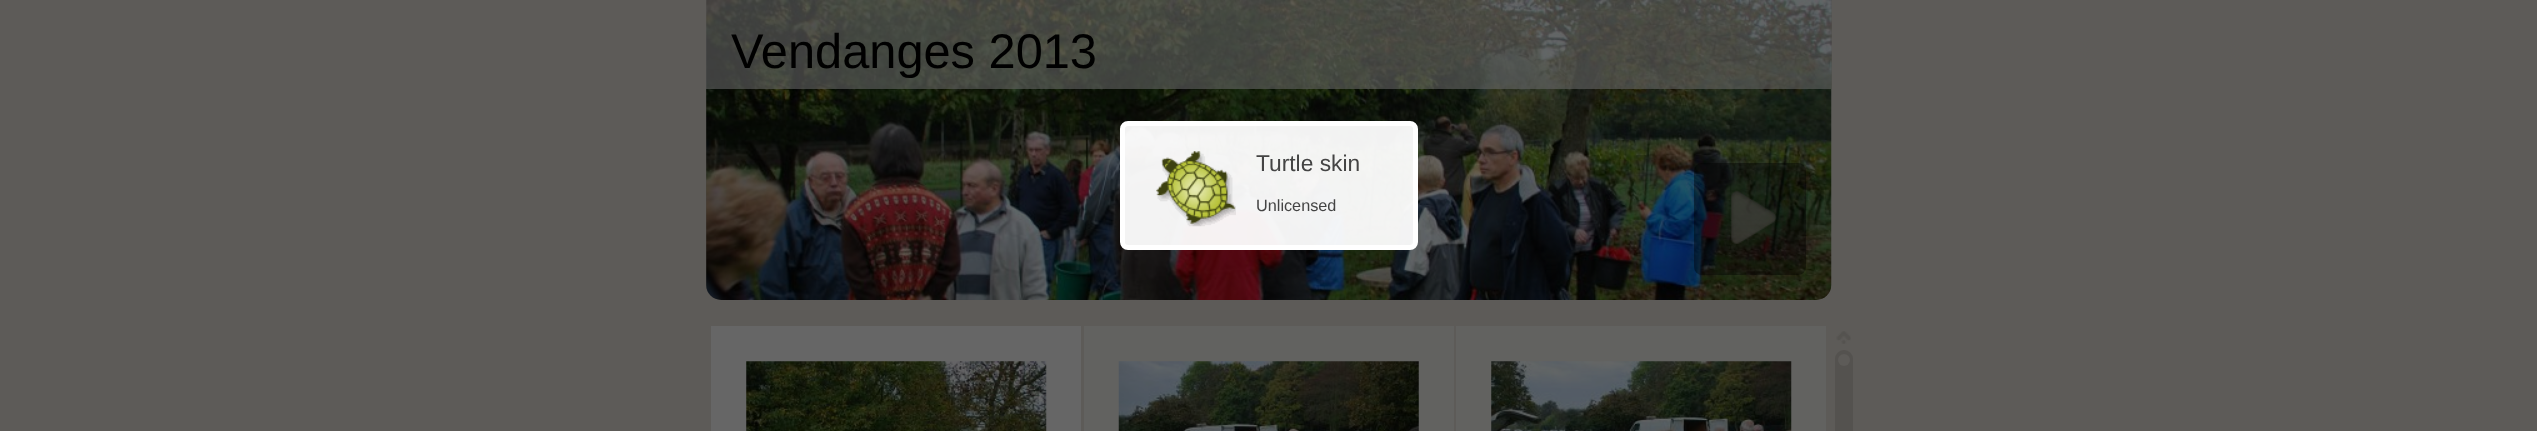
async function draw(canvas) {
	canvas.width = 2537;
	canvas.height = 431;
	const c = canvas.getContext('2d');
	c.miterLimit = 4;
	c.fontKerning = 'normal';
	async function loadImage(src) {
		const img = new Image();
		img.src = src;
		await img.decode();
		return img;
	}

	c.fillStyle = '#5d5b58';
	c.fillRect(0, 0, 2537, 431);
	c.fillStyle = '#4a4946';
	c.beginPath();
	c.roundRect(706, 0, 1125, 300, [0, 0, 15, 15]);
	c.fill();
	c.drawImage(await loadImage('img1.png'), 706, 0, 1126, 300);
	c.fillStyle = '#66666699';
	c.fillRect(706, 0, 1125, 89);
	c.font = '48.75px Liberation Sans';
	c.fillStyle = '#000';
	c.fillText('Vendanges 2013', 731, 68);
	c.fillStyle = '#00000066';
	c.beginPath();
	c.roundRect(1694, 163, 112, 112, 8);
	c.fill();
	c.drawImage(await loadImage('img2.png'), 1731, 191, 46, 53);
	c.fillStyle = '#666';
	c.fillRect(711, 326, 370, 105);
	c.drawImage(await loadImage('img3.png'), 746, 361, 301, 70);
	c.fillStyle = '#626260';
	c.fillRect(1084, 326, 370, 105);
	c.drawImage(await loadImage('img4.png'), 1118, 361, 301, 70);
	c.fillRect(1456, 326, 370, 105);
	c.drawImage(await loadImage('img5.png'), 1491, 361, 301, 70);
	c.drawImage(await loadImage('img6.png'), 1836, 331, 15, 13);
	c.fillStyle = '#54524f';
	c.beginPath();
	c.roundRect(1835, 350, 18, 81, [9, 9, 0, 0]);
	c.fill();
	c.fillStyle = '#5d5b58';
	c.beginPath();
	c.arc(1844, 360, 6, 0, 2 * Math.PI);
	c.fill();
	c.fillStyle = '#fffffff2';
	c.beginPath();
	c.roundRect(1122.5, 123.5, 293, 124, 5.5);
	c.fill();
	c.strokeStyle = '#fff';
	c.lineWidth = 5;
	c.stroke();
	c.drawImage(await loadImage('img7.png'), 1156, 151, 80, 76);
	c.font = '22.75px Liberation Sans';
	c.fillStyle = '#444';
	c.fillText('Turtle skin', 1256, 171);
	c.font = '16.25px Liberation Sans';
	c.fillText('Unlicensed', 1256, 211);
}

draw(document.querySelector('canvas'));
